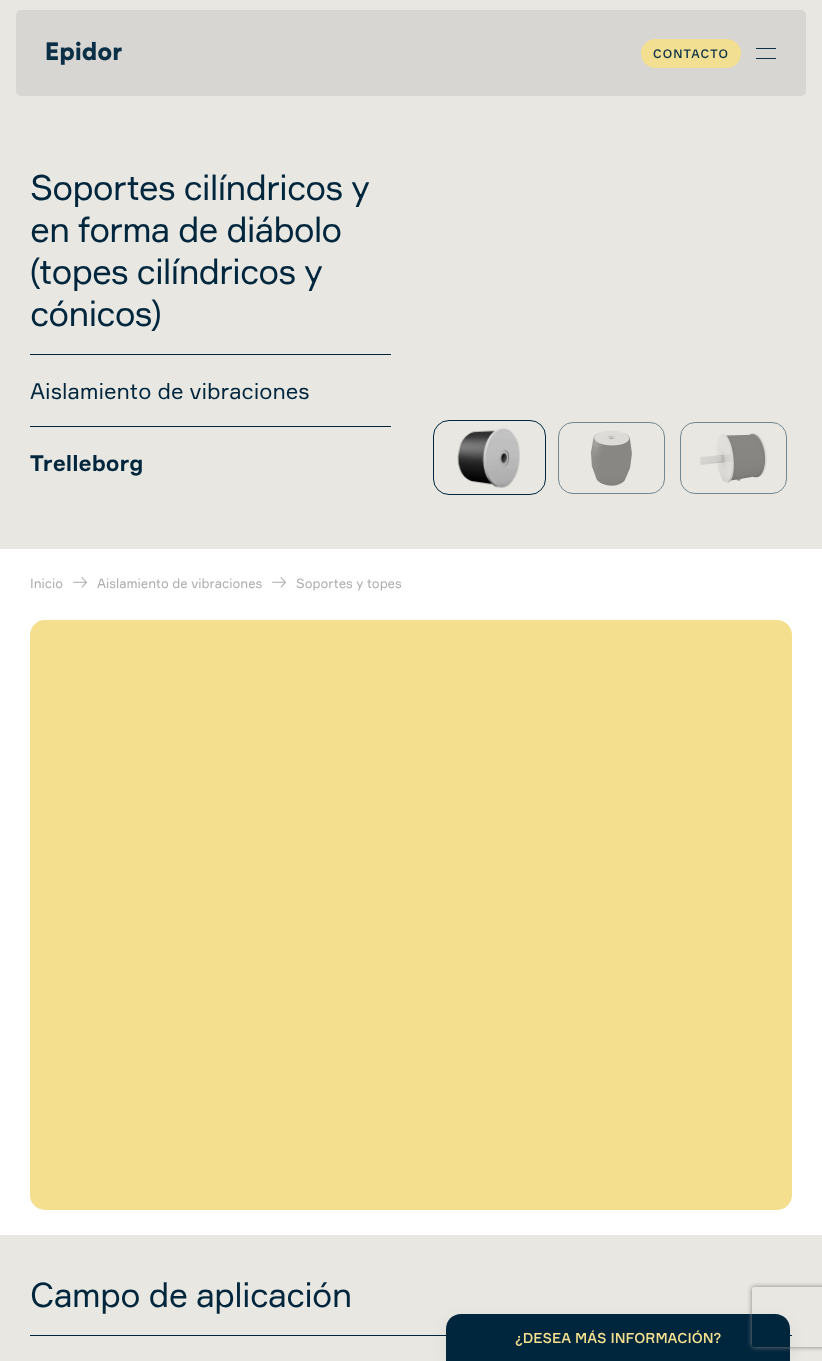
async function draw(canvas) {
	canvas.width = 822;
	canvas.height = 1361;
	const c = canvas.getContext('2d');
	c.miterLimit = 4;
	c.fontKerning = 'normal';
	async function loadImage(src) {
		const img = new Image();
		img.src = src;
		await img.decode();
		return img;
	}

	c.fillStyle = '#fff';
	c.fillRect(0, 0, 822, 1361);
	c.fillStyle = '#e8e7e1';
	c.fillRect(0, 0, 822, 549);
	c.fillStyle = '#d7d6d2';
	c.beginPath();
	c.roundRect(16, 10, 790, 86, 5);
	c.fill();
	c.drawImage(await loadImage('img1.png'), 46, 41, 76, 24);
	c.fillStyle = '#f2df92';
	c.beginPath();
	c.roundRect(642, 40, 98, 27, 13.5);
	c.fill();
	c.strokeStyle = '#f2df92';
	c.lineWidth = 2;
	c.stroke();
	c.letterSpacing = '1px';
	c.font = '500 12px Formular';
	c.fillStyle = '#0c3046';
	c.fillText('CONTACTO', 653, 58);
	c.fillRect(756, 48, 20, 1);
	c.fillRect(756, 58, 20, 1);
	c.letterSpacing = '-1px';
	c.font = '35px Formular';
	c.fillStyle = '#00263e';
	for (const [text, x, y] of [
		['Soportes cilíndricos y', 30, 200],
		['en forma de diábolo', 30, 242],
		['(topes cilíndricos y', 30, 284],
		['cónicos)', 30, 326],
	]) {
		c.fillText(text, x, y);
	}
	c.fillRect(30, 354, 361, 1);
	c.letterSpacing = '0px';
	c.font = '22px Formular';
	c.fillText('Aislamiento de vibraciones', 30, 399);
	c.fillRect(30, 426, 361, 1);
	c.font = 'bold 22px Formular';
	c.fillText('Trelleborg', 30, 471);
	c.beginPath();
	c.roundRect(433.5, 420.5, 112, 74, 15.5);
	c.strokeStyle = '#00263e';
	c.lineWidth = 1;
	c.stroke();
	c.drawImage(await loadImage('img2.png'), 457, 428, 63, 60);
	c.beginPath();
	c.roundRect(558.5, 422.5, 106, 71, 14.5);
	c.strokeStyle = '#748790';
	c.stroke();
	c.drawImage(await loadImage('img3.png'), 590, 430, 42, 56);
	c.beginPath();
	c.roundRect(680.5, 422.5, 106, 71, 14.5);
	c.stroke();
	c.drawImage(await loadImage('img4.png'), 700, 433, 67, 50);
	c.font = '13px Formular';
	c.fillStyle = '#acacac';
	c.fillText('Inicio', 30, 588);
	c.drawImage(await loadImage('img5.png'), 73, 577, 14, 11);
	c.fillText('Aislamiento de vibraciones', 97, 588);
	c.drawImage(await loadImage('img5.png'), 272, 577, 14, 11);
	c.fillText('Soportes y topes', 296, 588);
	c.fillStyle = '#f3df8e';
	c.beginPath();
	c.roundRect(30, 620, 762, 590, 15);
	c.fill();
	c.fillStyle = '#e8e7e1';
	c.fillRect(0, 1235, 822, 126);
	c.letterSpacing = '-0.75px';
	c.font = '34px Formular';
	c.fillStyle = '#00263e';
	c.fillText('Campo de aplicación', 30, 1307);
	c.fillRect(30, 1335, 762, 1);
	c.fillStyle = '#0000000f';
	c.filter = 'blur(8px)';
	c.beginPath();
	c.roundRect(446, 1319, 344, 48, 15);
	c.fill();
	c.filter = 'none';
	c.fillStyle = '#00263e';
	c.beginPath();
	c.moveTo(461, 1314);
	c.lineTo(775, 1314);
	c.bezierCurveTo(783.5, 1314, 790, 1320.5, 790, 1329);
	c.lineTo(790, 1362);
	c.lineTo(446, 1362);
	c.lineTo(446, 1329);
	c.bezierCurveTo(446, 1320.5, 452.5, 1314, 461, 1314);
	c.closePath();
	c.fill();
	c.letterSpacing = '0px';
	c.font = '500 14px Formular';
	c.fillStyle = '#f3df8e';
	c.fillText('¿DESEA MÁS INFORMACIÓN?', 515, 1343);
	c.save();
	c.beginPath();
	c.moveTo(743, 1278);
	c.lineTo(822, 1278);
	c.lineTo(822, 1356);
	c.lineTo(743, 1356);
	c.closePath();
	c.moveTo(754, 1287);
	c.lineTo(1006, 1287);
	c.bezierCurveTo(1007, 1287, 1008, 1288, 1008, 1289);
	c.lineTo(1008, 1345);
	c.bezierCurveTo(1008, 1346, 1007, 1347, 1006, 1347);
	c.lineTo(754, 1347);
	c.bezierCurveTo(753, 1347, 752, 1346, 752, 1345);
	c.lineTo(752, 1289);
	c.bezierCurveTo(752, 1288, 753, 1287, 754, 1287);
	c.closePath();
	c.clip('evenodd');
	c.fillStyle = '#808080';
	c.filter = 'blur(2.5px)';
	c.beginPath();
	c.roundRect(752, 1287, 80, 60, 2);
	c.fill();
	c.filter = 'none';
	c.restore();
}

draw(document.querySelector('canvas'));
